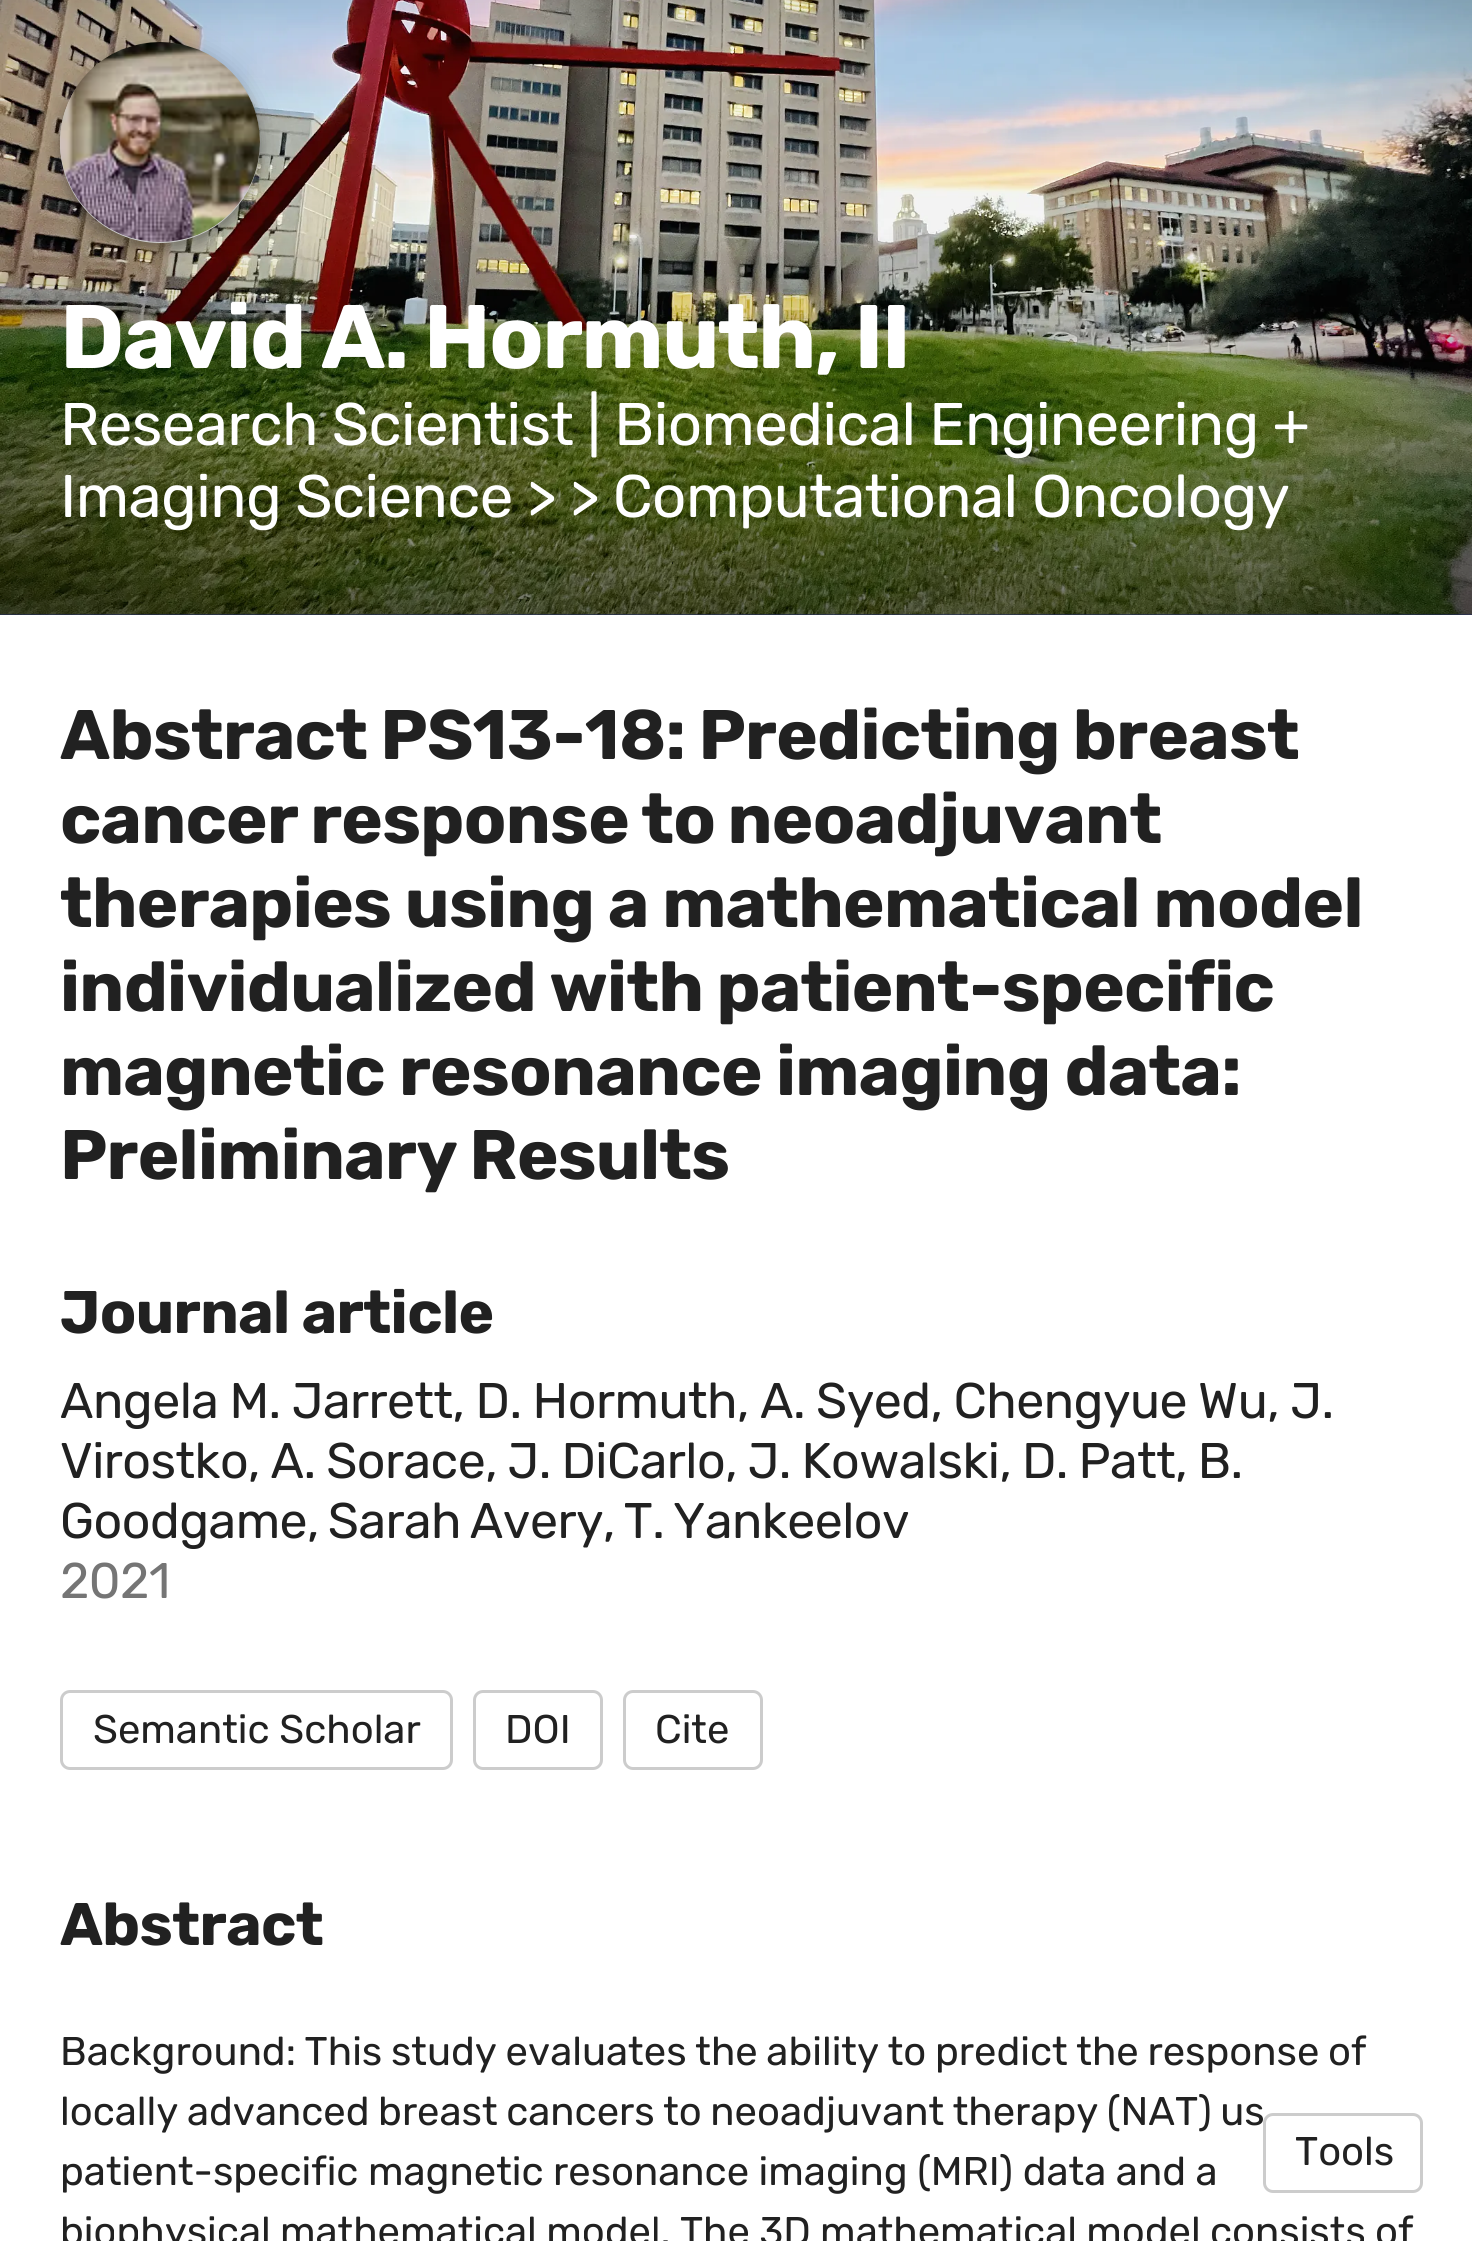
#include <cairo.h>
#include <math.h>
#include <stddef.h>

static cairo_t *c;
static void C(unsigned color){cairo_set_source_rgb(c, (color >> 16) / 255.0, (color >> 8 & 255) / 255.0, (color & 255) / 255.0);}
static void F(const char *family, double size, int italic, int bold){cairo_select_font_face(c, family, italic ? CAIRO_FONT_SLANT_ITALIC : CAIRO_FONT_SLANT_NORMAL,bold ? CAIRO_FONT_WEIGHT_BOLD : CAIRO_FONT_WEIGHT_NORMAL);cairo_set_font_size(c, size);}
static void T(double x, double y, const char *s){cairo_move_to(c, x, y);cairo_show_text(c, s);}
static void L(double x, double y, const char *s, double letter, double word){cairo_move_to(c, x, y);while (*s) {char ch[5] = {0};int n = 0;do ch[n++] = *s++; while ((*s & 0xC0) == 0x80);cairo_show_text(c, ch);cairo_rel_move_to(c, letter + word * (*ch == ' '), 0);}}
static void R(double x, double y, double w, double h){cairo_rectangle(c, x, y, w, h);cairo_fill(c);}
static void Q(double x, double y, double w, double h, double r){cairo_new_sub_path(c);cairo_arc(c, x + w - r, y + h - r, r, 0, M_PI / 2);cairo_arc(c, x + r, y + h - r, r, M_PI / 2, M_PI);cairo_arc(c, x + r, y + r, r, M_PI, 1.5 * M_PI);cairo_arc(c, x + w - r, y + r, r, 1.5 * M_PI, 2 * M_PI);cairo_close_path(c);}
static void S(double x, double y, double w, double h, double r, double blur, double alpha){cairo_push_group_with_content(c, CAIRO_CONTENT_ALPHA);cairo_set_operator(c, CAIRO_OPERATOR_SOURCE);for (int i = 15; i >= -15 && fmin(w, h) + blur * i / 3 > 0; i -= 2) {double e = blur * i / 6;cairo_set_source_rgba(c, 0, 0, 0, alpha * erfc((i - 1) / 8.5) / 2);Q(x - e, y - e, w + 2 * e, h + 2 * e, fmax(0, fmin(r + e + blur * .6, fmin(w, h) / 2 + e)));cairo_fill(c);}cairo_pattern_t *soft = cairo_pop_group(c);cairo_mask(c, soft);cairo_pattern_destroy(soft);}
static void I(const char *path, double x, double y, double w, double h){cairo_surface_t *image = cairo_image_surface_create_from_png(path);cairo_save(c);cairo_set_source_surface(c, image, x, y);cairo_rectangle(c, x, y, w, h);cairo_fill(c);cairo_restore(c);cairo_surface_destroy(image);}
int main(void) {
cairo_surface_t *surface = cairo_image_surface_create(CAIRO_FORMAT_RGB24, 1472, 2241);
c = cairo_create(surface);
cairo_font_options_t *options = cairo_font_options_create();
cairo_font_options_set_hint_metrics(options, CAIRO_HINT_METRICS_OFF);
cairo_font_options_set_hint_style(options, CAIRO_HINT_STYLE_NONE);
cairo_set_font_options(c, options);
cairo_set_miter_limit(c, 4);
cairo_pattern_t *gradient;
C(0xffffff);
cairo_paint(c);
C(0x3f51b5);
R(0,614,1472,1);
I("3.png",0,614,1472,1);
I("1.png",0,0,1472,615);
gradient = cairo_pattern_create_linear(736,-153,736,615);
cairo_pattern_add_color_stop_rgba(gradient,0,0,0,0,.3);
cairo_pattern_add_color_stop_rgba(gradient,.25,0,0,0,0);
cairo_pattern_add_color_stop_rgba(gradient,.5,0,0,0,0);
cairo_pattern_add_color_stop_rgba(gradient,1,0,0,0,.5);
cairo_set_source(c,gradient);
cairo_pattern_destroy(gradient);
R(0,0,1472,615);
C(0x000000);
S(60,45,200,200,100,12.5,.2);
S(60,53,200,200,100,6,.12);
S(60,48,200,200,100,5,.14);
C(0xcccccc);
cairo_arc(c,160,143,100,0,2 * M_PI);
cairo_fill(c);
I("2.png",60,42,200,200);
F("Rubik",90,0,1);
C(0xffffff);
L(60,368,"David A. Hormuth, II",-1.8,-1);
F("Rubik",60,0,0);
L(60,445,"Research Scientist | Biomedical Engineering +",-.6,-.25);
L(60,517,"Imaging Science > > Computational Oncology",-.6,0);
F("Rubik",70,0,1);
C(0x212121);
L(60,759,"Abstract PS13-18: Predicting breast",-.7,-1.1);
L(60,843,"cancer response to neoadjuvant",-.7,-2);
L(60,927,"therapies using a mathematical model",-.7,-.5);
L(60,1011,"individualized with patient-specific",-.7,-1);
L(60,1095,"magnetic resonance imaging data:",-.7,0);
L(60,1179,"Preliminary Results",-.7,-2);
F("Rubik",60,0,1);
L(60,1333,"Journal article",-.6,0);
F("Rubik",50,0,0);
L(60,1418,"Angela M. Jarrett, D. Hormuth, A. Syed, Chengyue Wu, J.",-.5,-.75);
L(60,1478,"Virostko, A. Sorace, J. DiCarlo, J. Kowalski, D. Patt, B.",-.5,-1.25);
L(60,1538,"Goodgame, Sarah Avery, T. Yankeelov",-.5,-3);
C(0x757575);
L(60,1598,"2021",-.5,0);
Q(61.5,1691.5,390,77,8.5);
C(0xcccccc);
cairo_set_line_width(c,3);
cairo_stroke(c);
F("Rubik",40,0,0);
C(0x212121);
T(93,1743,"Semantic Scholar");
Q(474.5,1691.5,127,77,8.5);
C(0xcccccc);
cairo_stroke(c);
C(0x212121);
T(505,1743,"DOI");
Q(624.5,1691.5,137,77,8.5);
C(0xcccccc);
cairo_stroke(c);
C(0x212121);
T(655,1743,"Cite");
F("Rubik",60,0,1);
L(60,1945,"Abstract",-.6,0);
F("Rubik",40,0,0);
L(60,2065,"Background: This study evaluates the ability to predict the response of",0,-1.1);
L(60,2125,"locally advanced breast cancers to neoadjuvant therapy (NAT) us",0,-1.25);
L(60,2185,"patient-specific magnetic resonance imaging (MRI) data and a",0,-.25);
L(60,2245,"biophysical mathematical model. The 3D mathematical model consists of",0,-.5);
Q(1264.5,2114.5,157,77,8.5);
C(0xcccccc);
cairo_stroke(c);
C(0x212121);
T(1295,2165,"Tools");
cairo_surface_write_to_png(surface, "o.png");
cairo_font_options_destroy(options);
cairo_destroy(c);
cairo_surface_destroy(surface);
return 0;
}
